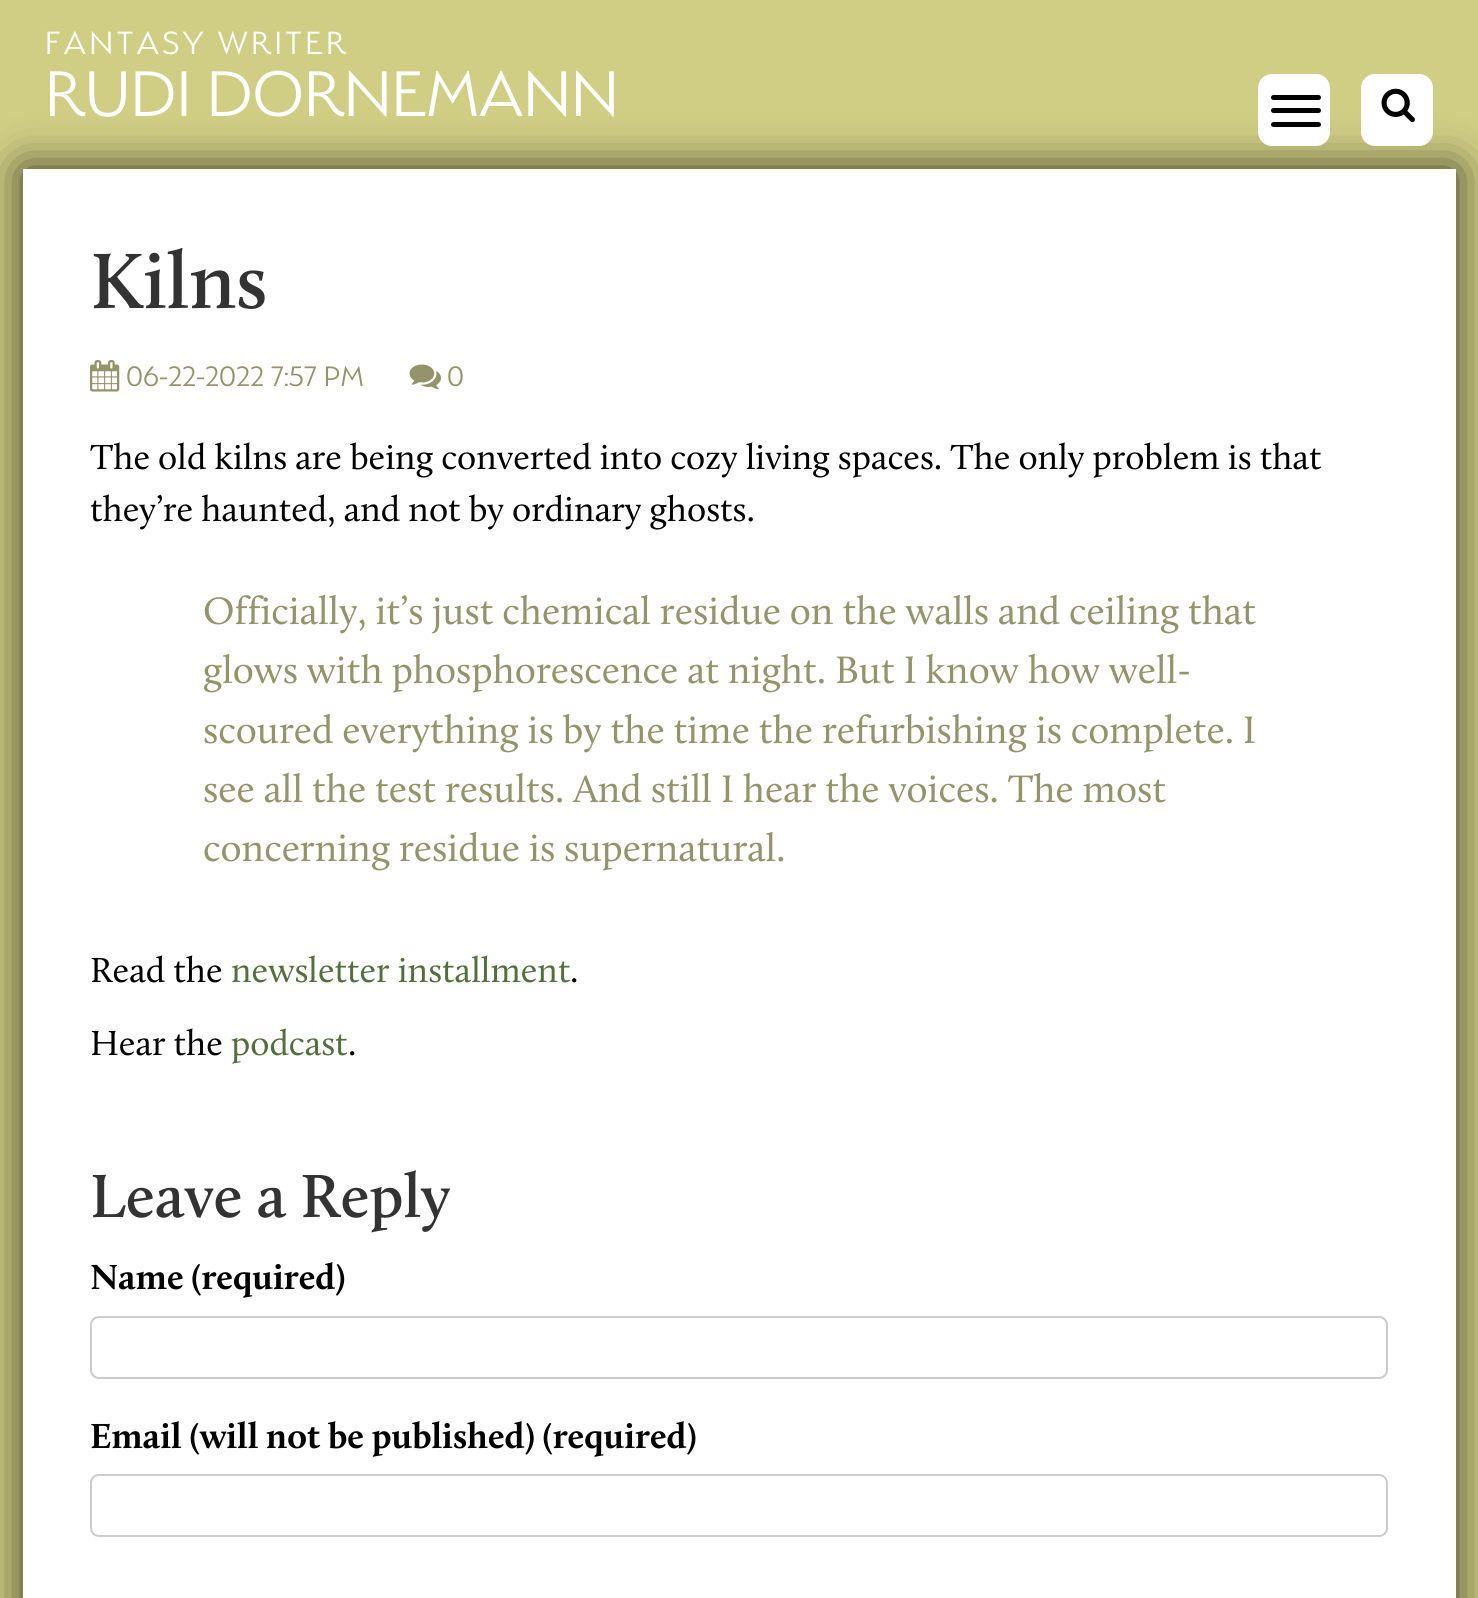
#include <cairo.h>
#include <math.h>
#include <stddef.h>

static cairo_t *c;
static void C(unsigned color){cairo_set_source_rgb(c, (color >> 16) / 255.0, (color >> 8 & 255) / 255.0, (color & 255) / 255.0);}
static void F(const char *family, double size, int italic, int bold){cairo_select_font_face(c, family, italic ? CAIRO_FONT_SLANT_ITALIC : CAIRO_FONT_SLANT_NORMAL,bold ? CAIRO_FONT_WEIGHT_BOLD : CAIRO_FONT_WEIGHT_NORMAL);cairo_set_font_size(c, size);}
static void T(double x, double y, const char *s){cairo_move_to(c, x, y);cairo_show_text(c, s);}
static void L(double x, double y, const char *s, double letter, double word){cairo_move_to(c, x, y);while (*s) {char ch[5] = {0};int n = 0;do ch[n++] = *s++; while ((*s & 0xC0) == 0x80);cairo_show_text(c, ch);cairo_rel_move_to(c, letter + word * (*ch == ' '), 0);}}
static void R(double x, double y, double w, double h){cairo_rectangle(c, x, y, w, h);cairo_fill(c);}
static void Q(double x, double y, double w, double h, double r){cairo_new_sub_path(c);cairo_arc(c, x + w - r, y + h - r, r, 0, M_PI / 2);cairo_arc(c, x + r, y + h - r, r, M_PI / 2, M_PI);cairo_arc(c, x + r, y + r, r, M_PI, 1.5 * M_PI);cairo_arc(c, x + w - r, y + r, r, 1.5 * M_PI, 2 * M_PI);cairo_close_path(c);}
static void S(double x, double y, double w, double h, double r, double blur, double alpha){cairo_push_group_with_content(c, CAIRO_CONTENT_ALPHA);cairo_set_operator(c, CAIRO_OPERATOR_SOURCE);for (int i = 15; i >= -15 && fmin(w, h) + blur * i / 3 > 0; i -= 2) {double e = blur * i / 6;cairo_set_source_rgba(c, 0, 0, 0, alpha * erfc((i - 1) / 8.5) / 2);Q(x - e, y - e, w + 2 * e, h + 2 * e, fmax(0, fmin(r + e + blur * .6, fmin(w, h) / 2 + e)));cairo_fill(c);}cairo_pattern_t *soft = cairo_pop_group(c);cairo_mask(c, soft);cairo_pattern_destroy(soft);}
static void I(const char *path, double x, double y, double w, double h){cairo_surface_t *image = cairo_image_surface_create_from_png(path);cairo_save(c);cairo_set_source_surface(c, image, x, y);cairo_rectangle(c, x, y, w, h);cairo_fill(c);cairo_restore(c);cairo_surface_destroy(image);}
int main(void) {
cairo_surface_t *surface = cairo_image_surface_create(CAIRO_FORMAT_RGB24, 1478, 1598);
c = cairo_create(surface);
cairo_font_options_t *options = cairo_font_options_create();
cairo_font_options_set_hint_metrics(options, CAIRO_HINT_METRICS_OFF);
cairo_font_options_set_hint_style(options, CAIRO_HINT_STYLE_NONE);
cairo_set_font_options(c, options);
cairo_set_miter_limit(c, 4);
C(0xd0ce85);
cairo_paint(c);
F("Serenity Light",36,0,0);
C(0xffffff);
L(45,54,"FANTASY WRITER",3.6,0);
C(0x000000);
S(23,169,1433,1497,0,22.5,.75);
F("Serenity Light",72,0,0);
C(0xffffff);
T(45,116,"RUDI DORNEMANN");
Q(1258,74,72,72,14);
cairo_fill(c);
C(0x000000);
Q(1271,95,50,5,2.5);
cairo_fill(c);
Q(1271,108,50,5,2.5);
cairo_fill(c);
Q(1271,122,50,5,2.5);
cairo_fill(c);
C(0xffffff);
Q(1361,74,72,72,14);
cairo_fill(c);
I("1.png",1381,88,34,35);
R(23,169,1433,1429);
F("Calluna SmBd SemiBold",81,0,0);
C(0x333333);
T(90,308,"Kilns");
I("2.png",90,360,30,32);
F("Serenity Light",31.5,0,0);
C(0x94946b);
T(126,386,"06-22-2022 7:57 PM");
I("3.png",409,364,32,26);
T(447,386,"0");
F("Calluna",36,0,0);
C(0x000000);
T(90,469,"The old kilns are being converted into cozy living spaces. The only problem is that");
T(90,521,"they’re haunted, and not by ordinary ghosts.");
F("Calluna",39.6,0,0);
C(0x94946b);
T(203,624,"Officially, it’s just chemical residue on the walls and ceiling that");
T(203,683,"glows with phosphorescence at night. But I know how well-");
T(203,743,"scoured everything is by the time the refurbishing is complete. I");
T(203,802,"see all the test results. And still I hear the voices. The most");
T(203,861,"concerning residue is supernatural.");
F("Calluna",36,0,0);
C(0x000000);
T(90,982,"Read the");
C(0x536f3c);
T(231,982,"newsletter installment");
C(0x000000);
T(570,982,".");
T(90,1055,"Hear the");
C(0x536f3c);
T(231,1055,"podcast");
C(0x000000);
T(348,1055,".");
F("Calluna SmBd SemiBold",63,0,0);
C(0x333333);
T(90,1217,"Leave a Reply");
F("Calluna",36,0,1);
C(0x000000);
T(90,1289,"Name (required)");
Q(91,1317,1296,61,8);
C(0xcccccc);
cairo_stroke(c);
C(0x000000);
T(90,1448,"Email (will not be published) (required)");
Q(91,1475,1296,61,8);
C(0xcccccc);
cairo_stroke(c);
cairo_surface_write_to_png(surface, "o.png");
cairo_font_options_destroy(options);
cairo_destroy(c);
cairo_surface_destroy(surface);
return 0;
}
